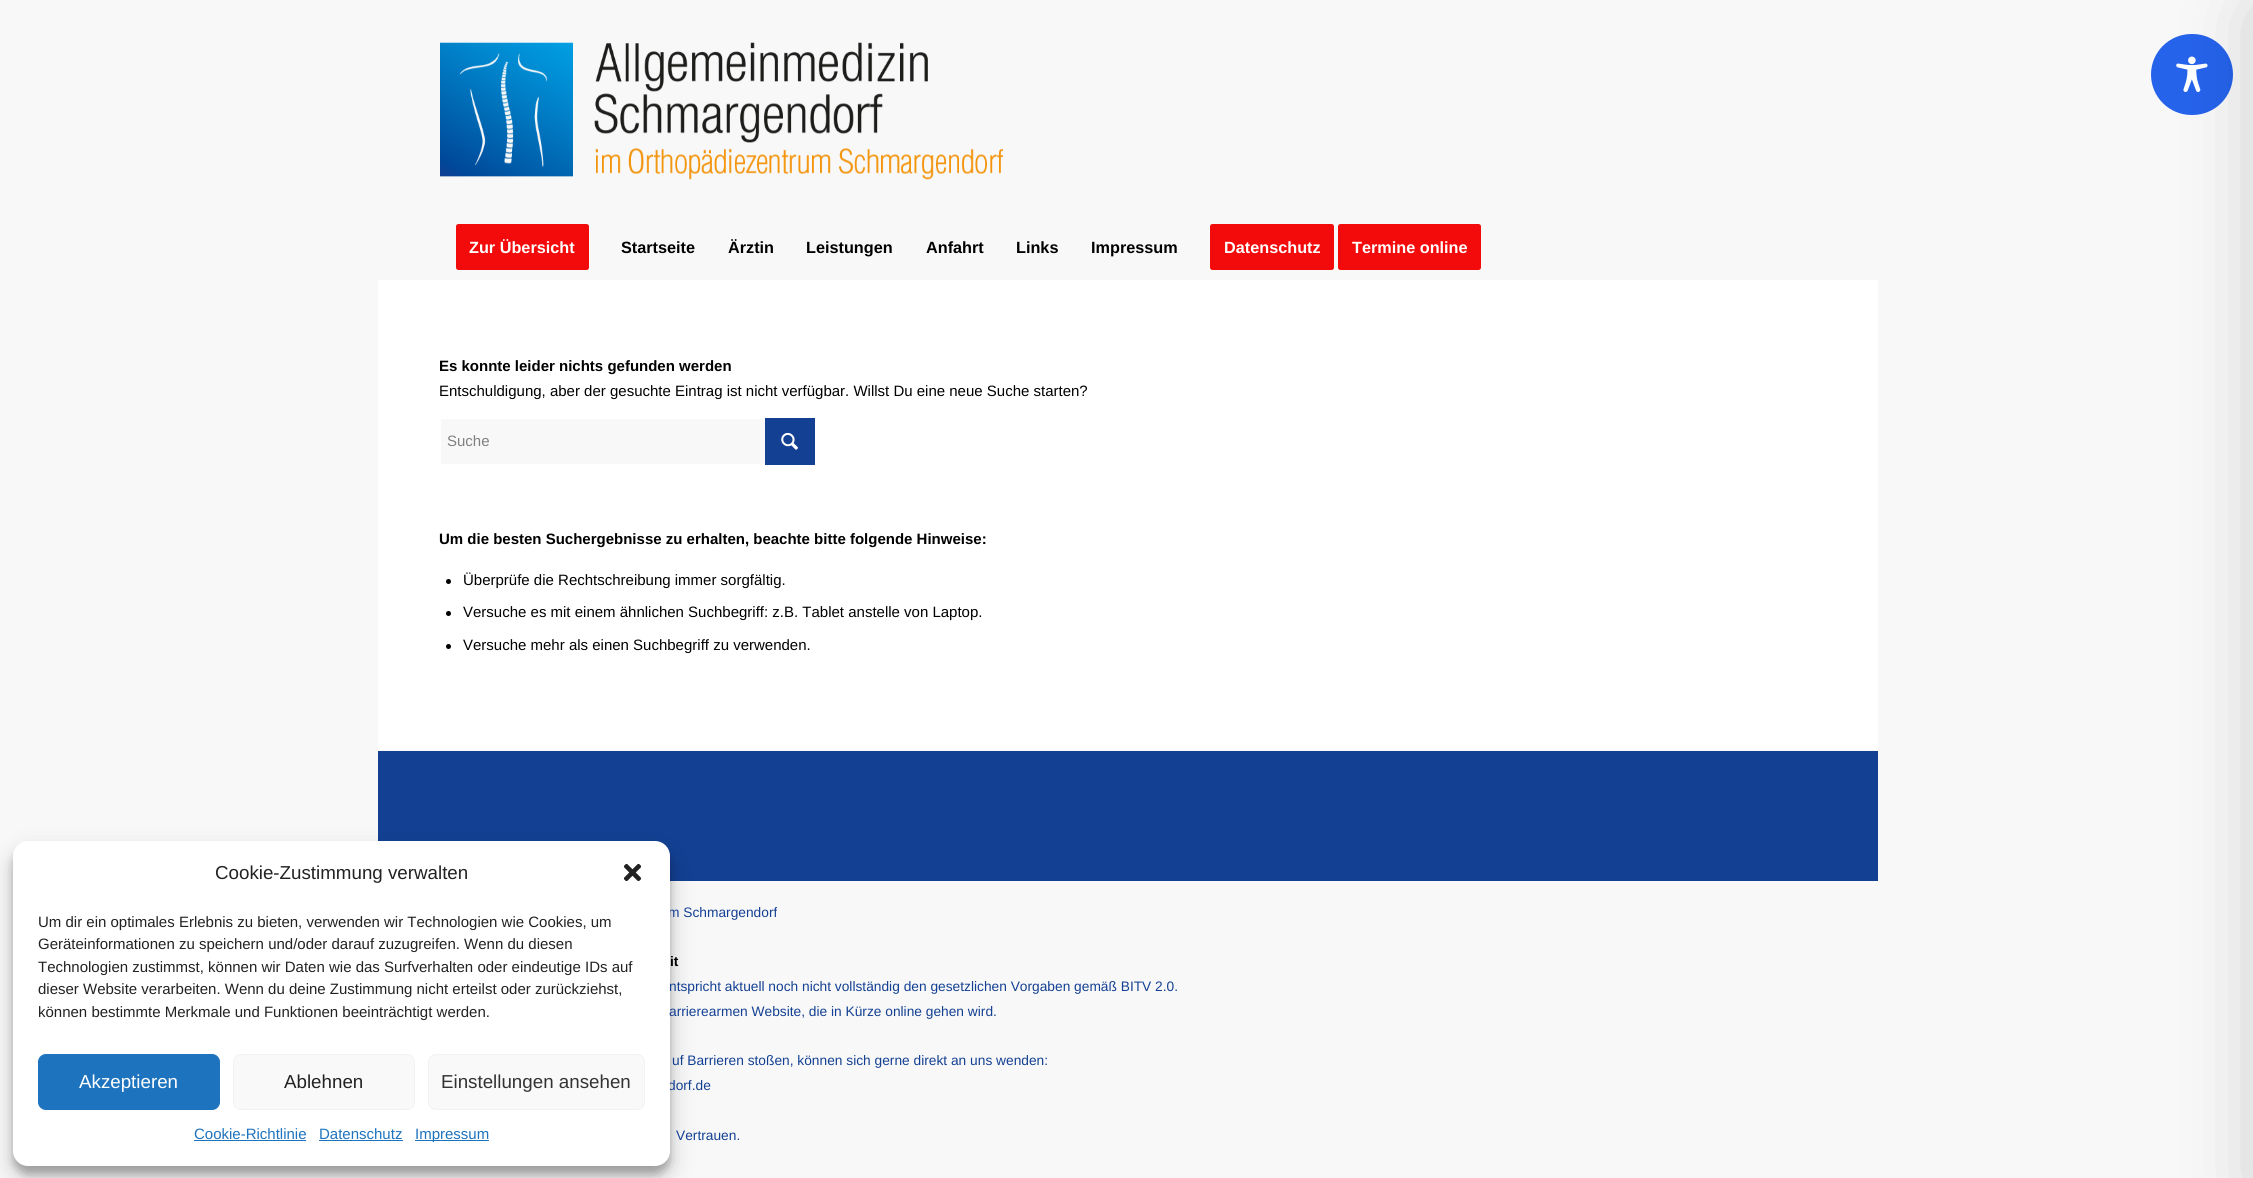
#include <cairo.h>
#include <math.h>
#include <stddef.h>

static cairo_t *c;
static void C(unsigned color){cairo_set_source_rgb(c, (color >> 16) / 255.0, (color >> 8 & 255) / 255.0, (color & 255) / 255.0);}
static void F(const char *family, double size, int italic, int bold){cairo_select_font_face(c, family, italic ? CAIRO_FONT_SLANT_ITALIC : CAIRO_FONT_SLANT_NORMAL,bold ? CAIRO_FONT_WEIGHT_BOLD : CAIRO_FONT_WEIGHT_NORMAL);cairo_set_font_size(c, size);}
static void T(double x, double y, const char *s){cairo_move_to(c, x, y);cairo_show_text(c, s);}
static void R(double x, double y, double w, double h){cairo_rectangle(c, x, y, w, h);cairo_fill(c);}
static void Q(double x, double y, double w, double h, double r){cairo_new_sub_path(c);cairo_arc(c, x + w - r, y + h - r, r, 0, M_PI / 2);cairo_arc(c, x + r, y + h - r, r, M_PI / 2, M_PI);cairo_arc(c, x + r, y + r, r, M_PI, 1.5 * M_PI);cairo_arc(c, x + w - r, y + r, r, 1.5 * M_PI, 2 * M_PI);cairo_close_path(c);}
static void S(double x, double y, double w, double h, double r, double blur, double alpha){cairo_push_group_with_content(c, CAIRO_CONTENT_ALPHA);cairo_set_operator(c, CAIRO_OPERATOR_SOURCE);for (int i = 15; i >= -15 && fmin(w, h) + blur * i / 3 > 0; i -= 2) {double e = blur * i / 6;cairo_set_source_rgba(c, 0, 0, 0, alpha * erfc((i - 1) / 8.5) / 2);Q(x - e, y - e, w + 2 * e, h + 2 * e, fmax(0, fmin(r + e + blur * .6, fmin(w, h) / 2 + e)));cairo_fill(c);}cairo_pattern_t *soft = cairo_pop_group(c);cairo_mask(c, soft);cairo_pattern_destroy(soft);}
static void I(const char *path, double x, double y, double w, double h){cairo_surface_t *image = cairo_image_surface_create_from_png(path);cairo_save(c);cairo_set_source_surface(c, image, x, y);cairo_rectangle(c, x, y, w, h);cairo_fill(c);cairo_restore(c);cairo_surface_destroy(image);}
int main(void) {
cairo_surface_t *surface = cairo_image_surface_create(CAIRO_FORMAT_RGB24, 2253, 1178);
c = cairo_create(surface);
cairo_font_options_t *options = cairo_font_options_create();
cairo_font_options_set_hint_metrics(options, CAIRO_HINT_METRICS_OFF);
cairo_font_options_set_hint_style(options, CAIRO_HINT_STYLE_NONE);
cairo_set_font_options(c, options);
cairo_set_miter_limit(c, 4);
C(0xf8f8f8);
cairo_paint(c);
C(0x2563eb);
Q(2151,34,82,81,40.5);
cairo_fill(c);
I("1.png",2176,56,32,37);
C(0x000000);
S(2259,13,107,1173,0,37.5,.2);
C(0x134093);
R(378,751,1500,130);
C(0x000000);
S(13,849,657,325,15,4,.23);
S(13,854,657,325,15,12.5,.19);
F("Liberation Sans",13.75,0,0);
C(0x134093);
T(668,917,"m Schmargendorf");
T(668,1090,"dorf.de");
C(0xffffff);
Q(13,841,657,325,15);
cairo_fill(c);
F("Liberation Sans",18.75,0,0);
C(0x222222);
T(215,879,"Cookie-Zustimmung verwalten");
I("2.png",623,863,19,19);
F("Liberation Sans",15,0,0);
T(38,927,"Um dir ein optimales Erlebnis zu bieten, verwenden wir Technologien wie Cookies, um");
T(38,949,"Geräteinformationen zu speichern und/oder darauf zuzugreifen. Wenn du diesen");
T(38,972,"Technologien zustimmst, können wir Daten wie das Surfverhalten oder eindeutige IDs auf");
T(38,994,"dieser Website verarbeiten. Wenn du deine Zustimmung nicht erteilst oder zurückziehst,");
T(38,1017,"können bestimmte Merkmale und Funktionen beeinträchtigt werden.");
C(0x1e73be);
Q(38.5,1054.5,181,55,7.5);
cairo_fill_preserve(c);
cairo_set_line_width(c,1);
cairo_stroke(c);
F("Liberation Sans",18.75,0,0);
C(0xffffff);
T(79,1088,"Akzeptieren");
C(0xf9f9f9);
Q(233.5,1054.5,181,55,7.5);
cairo_fill_preserve(c);
C(0xf2f2f2);
cairo_stroke(c);
C(0x222222);
T(284,1088,"Ablehnen");
C(0xf9f9f9);
Q(428.5,1054.5,216,55,7.5);
cairo_fill_preserve(c);
C(0xf2f2f2);
cairo_stroke(c);
C(0x333333);
T(441,1088,"Einstellungen ansehen");
F("Liberation Sans",15,0,0);
C(0x1e73be);
T(194,1139,"Cookie-Richtlinie");
R(194,1140,112,1);
T(319,1139,"Datenschutz");
R(319,1140,84,1);
R(415,1140,74,1);
T(415,1139,"Impressum");
I("3.png",440,42,563,138);
C(0xf30a0a);
Q(457.5,225.5,130,43,1);
cairo_fill_preserve(c);
cairo_set_line_width(c,3);
cairo_stroke(c);
F("Liberation Sans",16.25,0,1);
C(0xffffff);
T(469,253,"Zur Übersicht");
C(0x000000);
T(621,253,"Startseite");
T(728,253,"Ärztin");
T(806,253,"Leistungen");
T(926,253,"Anfahrt");
T(1016,253,"Links");
T(1091,253,"Impressum");
C(0xf30a0a);
Q(1211.5,225.5,121,43,1);
cairo_fill_preserve(c);
cairo_stroke(c);
C(0xffffff);
T(1224,253,"Datenschutz");
C(0xf30a0a);
Q(1339.5,225.5,140,43,1);
cairo_fill_preserve(c);
cairo_stroke(c);
C(0xffffff);
T(1352,253,"Termine online");
R(378,280,1500,470);
F("Liberation Sans",15,0,1);
C(0x000000);
T(439,371,"Es konnte leider nichts gefunden werden");
F("Liberation Sans",15,0,0);
T(439,396,"Entschuldigung, aber der gesuchte Eintrag ist nicht verfügbar. Willst Du eine neue Suche starten?");
C(0xf8f8f8);
R(441,419,324,45);
C(0x808080);
T(447,446,"Suche");
C(0x134093);
R(765,418,50,47);
I("4.png",781,432,17,18);
F("Liberation Sans",15,0,1);
C(0x000000);
T(439,544,"Um die besten Suchergebnisse zu erhalten, beachte bitte folgende Hinweise:");
cairo_new_path(c);
cairo_arc(c,448.5,581.5,2.5,0,2 * M_PI);
cairo_fill(c);
F("Liberation Sans",15,0,0);
T(463,585,"Überprüfe die Rechtschreibung immer sorgfältig.");
cairo_new_path(c);
cairo_arc(c,448.5,613.5,2.5,0,2 * M_PI);
cairo_fill(c);
T(463,617,"Versuche es mit einem ähnlichen Suchbegriff: z.B. Tablet anstelle von Laptop.");
cairo_new_path(c);
cairo_arc(c,448.5,646.5,2.5,0,2 * M_PI);
cairo_fill(c);
T(463,650,"Versuche mehr als einen Suchbegriff zu verwenden.");
F("Liberation Sans",13.75,0,1);
T(670,966,"it");
F("Liberation Sans",13.75,0,0);
C(0x134093);
T(669,991,"ntspricht aktuell noch nicht vollständig den gesetzlichen Vorgaben gemäß BITV 2.0.");
T(669,1016,"arrierearmen Website, die in Kürze online gehen wird.");
T(672,1065,"uf Barrieren stoßen, können sich gerne direkt an uns wenden:");
T(676,1140,"Vertrauen.");
cairo_surface_write_to_png(surface, "o.png");
cairo_font_options_destroy(options);
cairo_destroy(c);
cairo_surface_destroy(surface);
return 0;
}
